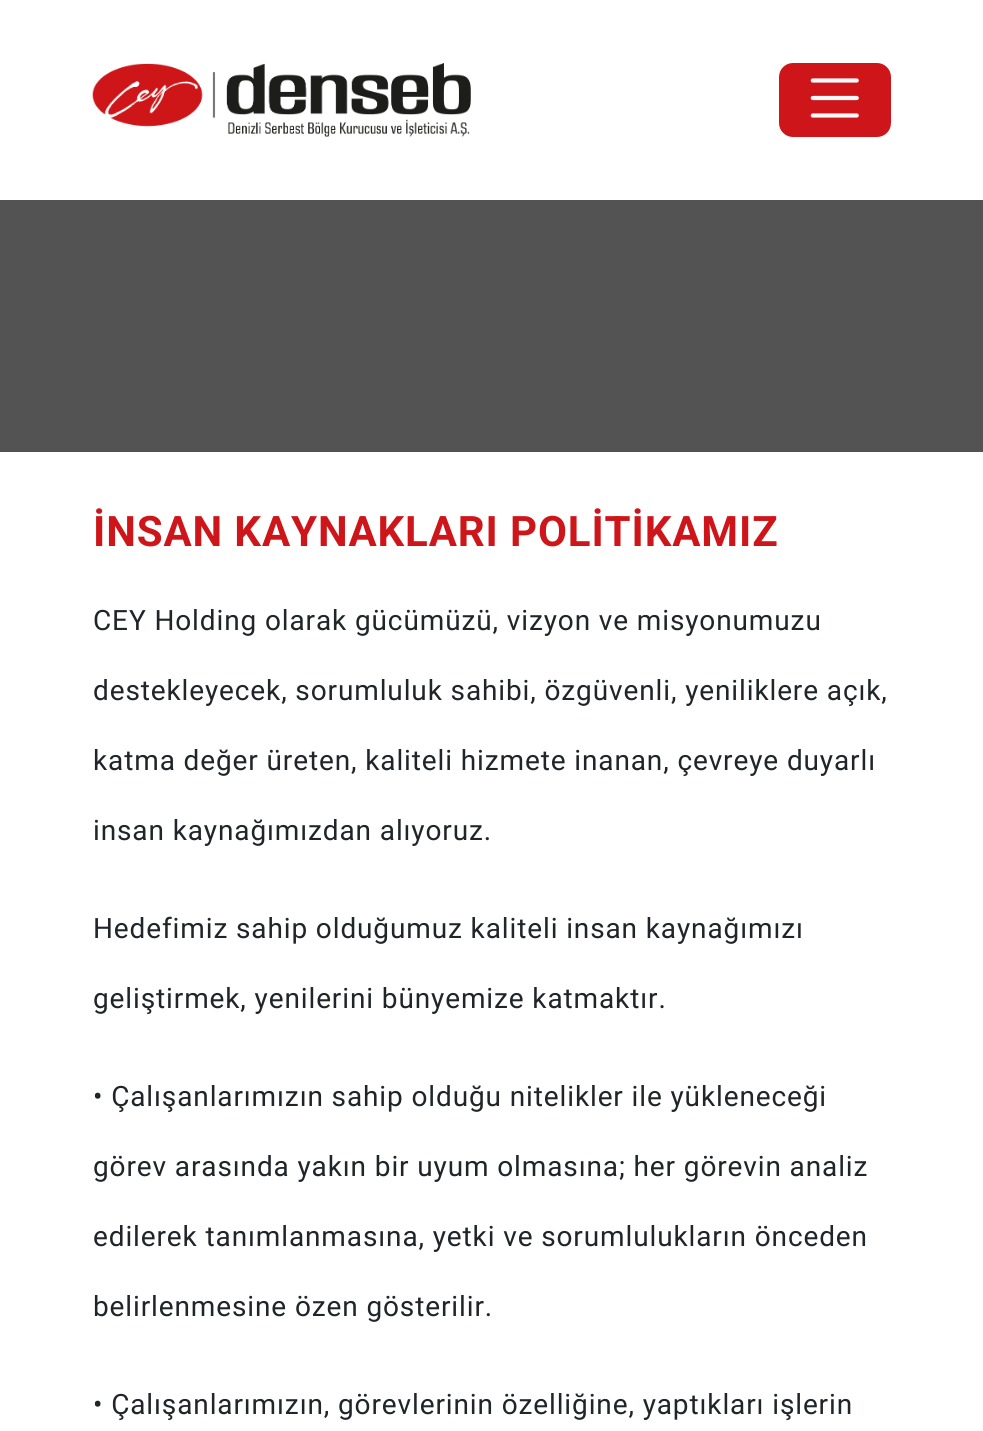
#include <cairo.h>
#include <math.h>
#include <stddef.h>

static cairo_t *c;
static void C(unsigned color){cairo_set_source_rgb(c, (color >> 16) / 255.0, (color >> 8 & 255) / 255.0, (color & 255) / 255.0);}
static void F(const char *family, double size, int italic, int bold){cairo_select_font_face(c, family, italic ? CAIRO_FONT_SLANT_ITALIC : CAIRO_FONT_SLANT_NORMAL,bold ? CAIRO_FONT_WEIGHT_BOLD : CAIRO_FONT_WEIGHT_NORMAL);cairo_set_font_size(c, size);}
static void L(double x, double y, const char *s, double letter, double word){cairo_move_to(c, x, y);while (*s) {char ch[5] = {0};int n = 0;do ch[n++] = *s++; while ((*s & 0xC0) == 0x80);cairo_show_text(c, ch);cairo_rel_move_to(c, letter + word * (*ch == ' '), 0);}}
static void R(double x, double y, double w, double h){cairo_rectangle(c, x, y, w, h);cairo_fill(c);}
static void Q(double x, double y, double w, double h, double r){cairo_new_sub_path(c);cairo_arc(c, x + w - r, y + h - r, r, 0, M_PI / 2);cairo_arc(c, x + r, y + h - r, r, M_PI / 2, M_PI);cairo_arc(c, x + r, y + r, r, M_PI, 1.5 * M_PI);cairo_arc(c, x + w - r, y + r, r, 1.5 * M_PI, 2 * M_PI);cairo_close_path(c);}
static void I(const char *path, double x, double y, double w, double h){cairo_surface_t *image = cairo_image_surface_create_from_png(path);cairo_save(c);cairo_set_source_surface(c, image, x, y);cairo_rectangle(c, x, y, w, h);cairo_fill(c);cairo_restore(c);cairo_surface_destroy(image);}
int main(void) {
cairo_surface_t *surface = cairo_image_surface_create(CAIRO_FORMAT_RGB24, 983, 1431);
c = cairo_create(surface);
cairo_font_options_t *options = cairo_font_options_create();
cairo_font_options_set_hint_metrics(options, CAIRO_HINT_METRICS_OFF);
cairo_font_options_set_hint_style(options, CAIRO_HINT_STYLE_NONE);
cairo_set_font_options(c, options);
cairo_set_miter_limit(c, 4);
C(0xffffff);
cairo_paint(c);
I("1.png",92,63,379,74);
C(0xce161a);
Q(779,63,112,74,14);
cairo_fill(c);
I("2.png",810,78,49,40);
C(0x535353);
R(0,200,983,252);
F("Roboto",42,0,1);
C(0xce161a);
L(93,546,"İNSAN KAYNAKLARI POLİTİKAMIZ",.88,0);
F("Roboto",28,0,0);
C(0x212529);
L(93,630,"CEY Holding olarak gücümüzü, vizyon ve misyonumuzu",.88,0);
L(93,700,"destekleyecek, sorumluluk sahibi, özgüvenli, yeniliklere açık,",.88,0);
L(93,770,"katma değer üreten, kaliteli hizmete inanan, çevreye duyarlı",.88,0);
L(93,840,"insan kaynağımızdan alıyoruz.",.88,0);
L(93,938,"Hedefimiz sahip olduğumuz kaliteli insan kaynağımızı",.88,0);
L(93,1008,"geliştirmek, yenilerini bünyemize katmaktır.",.88,0);
L(93,1106,"• Çalışanlarımızın sahip olduğu nitelikler ile yükleneceği",.88,0);
L(93,1176,"görev arasında yakın bir uyum olmasına; her görevin analiz",.88,0);
L(93,1246,"edilerek tanımlanmasına, yetki ve sorumlulukların önceden",.88,0);
L(93,1316,"belirlenmesine özen gösterilir.",.88,0);
L(93,1414,"• Çalışanlarımızın, görevlerinin özelliğine, yaptıkları işlerin",.88,0);
cairo_surface_write_to_png(surface, "o.png");
cairo_font_options_destroy(options);
cairo_destroy(c);
cairo_surface_destroy(surface);
return 0;
}
